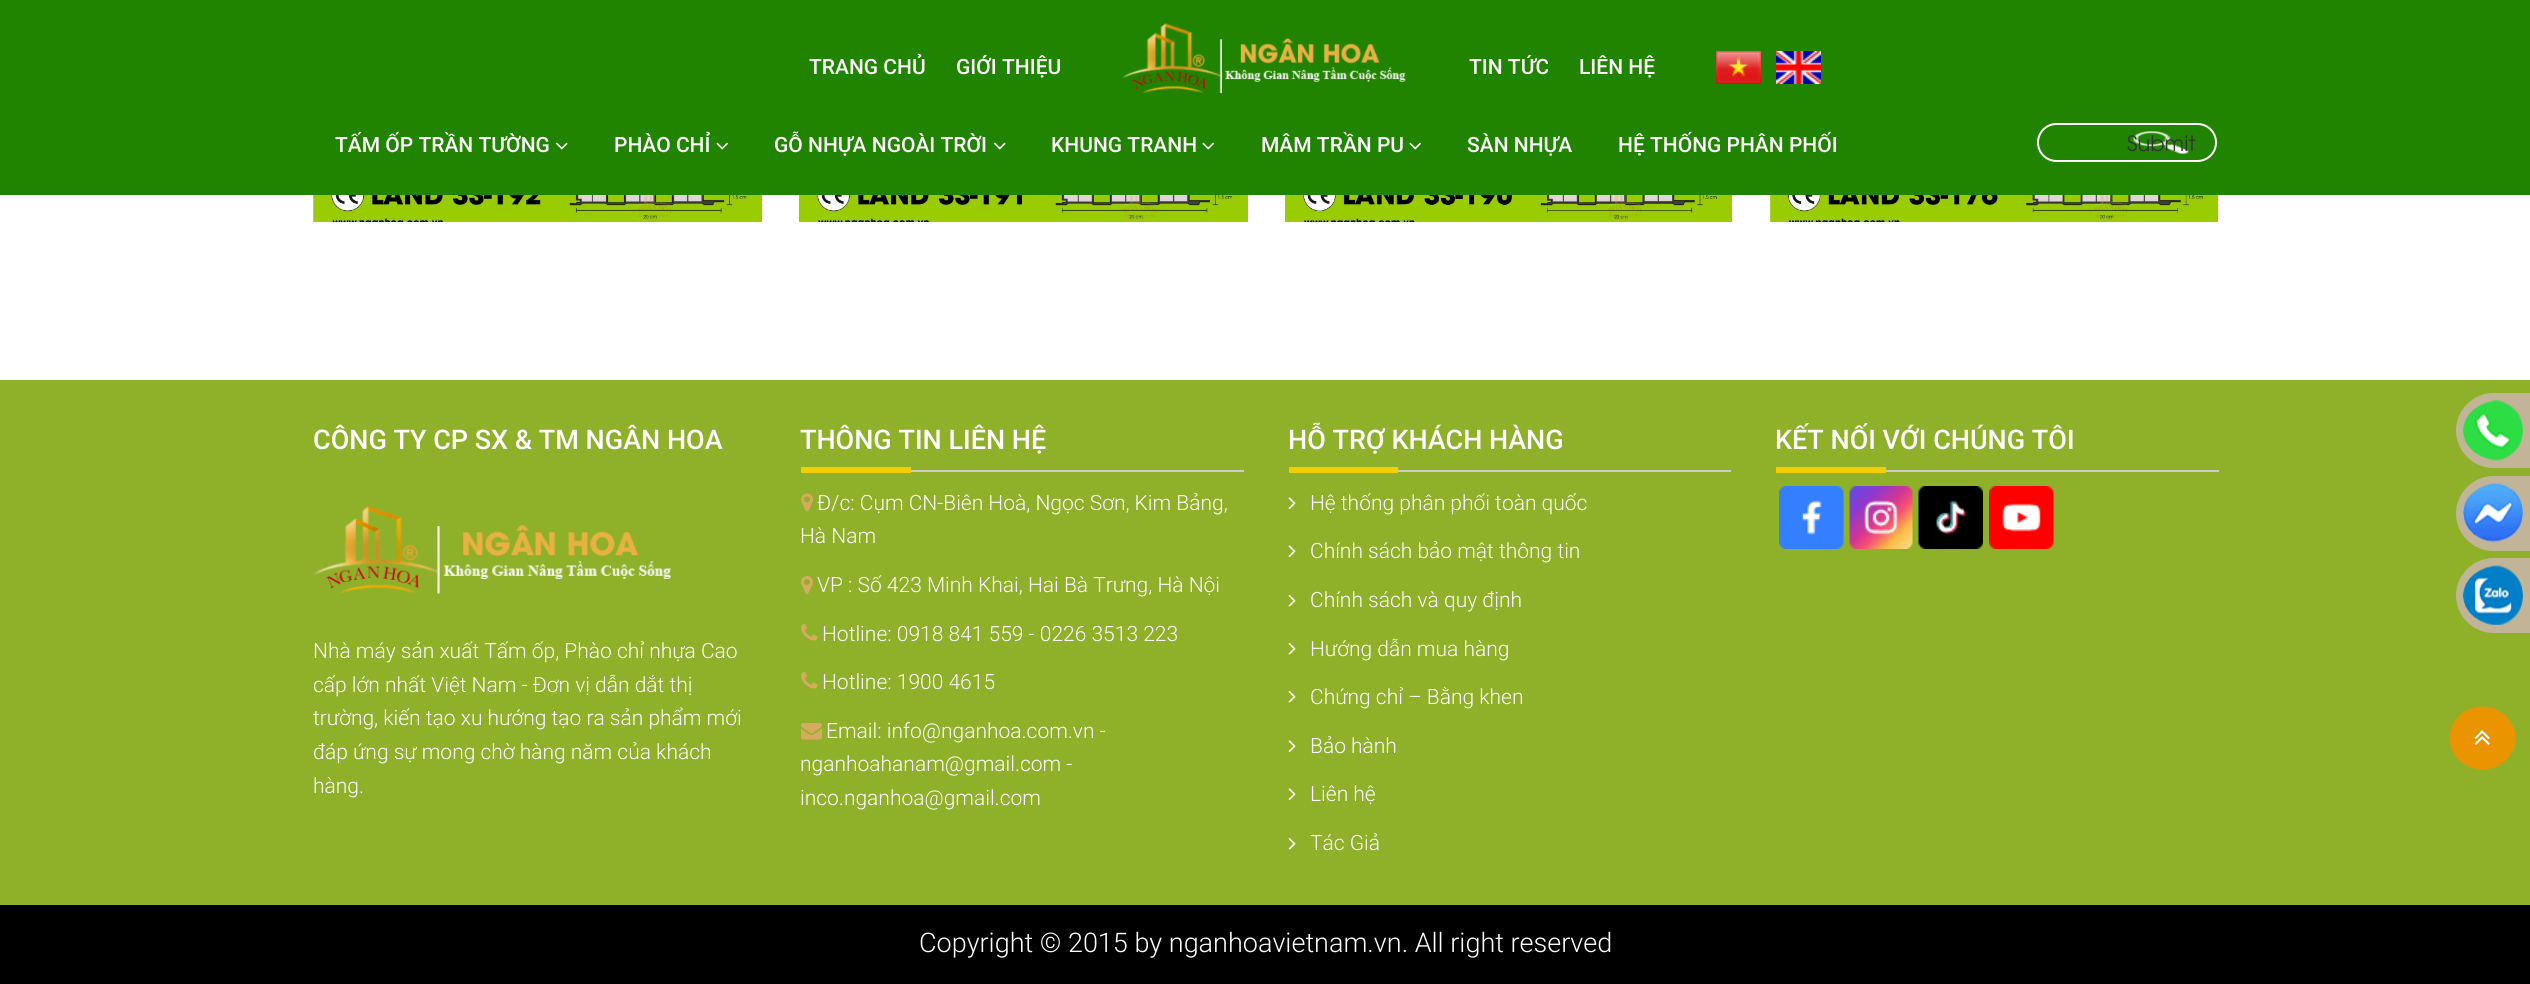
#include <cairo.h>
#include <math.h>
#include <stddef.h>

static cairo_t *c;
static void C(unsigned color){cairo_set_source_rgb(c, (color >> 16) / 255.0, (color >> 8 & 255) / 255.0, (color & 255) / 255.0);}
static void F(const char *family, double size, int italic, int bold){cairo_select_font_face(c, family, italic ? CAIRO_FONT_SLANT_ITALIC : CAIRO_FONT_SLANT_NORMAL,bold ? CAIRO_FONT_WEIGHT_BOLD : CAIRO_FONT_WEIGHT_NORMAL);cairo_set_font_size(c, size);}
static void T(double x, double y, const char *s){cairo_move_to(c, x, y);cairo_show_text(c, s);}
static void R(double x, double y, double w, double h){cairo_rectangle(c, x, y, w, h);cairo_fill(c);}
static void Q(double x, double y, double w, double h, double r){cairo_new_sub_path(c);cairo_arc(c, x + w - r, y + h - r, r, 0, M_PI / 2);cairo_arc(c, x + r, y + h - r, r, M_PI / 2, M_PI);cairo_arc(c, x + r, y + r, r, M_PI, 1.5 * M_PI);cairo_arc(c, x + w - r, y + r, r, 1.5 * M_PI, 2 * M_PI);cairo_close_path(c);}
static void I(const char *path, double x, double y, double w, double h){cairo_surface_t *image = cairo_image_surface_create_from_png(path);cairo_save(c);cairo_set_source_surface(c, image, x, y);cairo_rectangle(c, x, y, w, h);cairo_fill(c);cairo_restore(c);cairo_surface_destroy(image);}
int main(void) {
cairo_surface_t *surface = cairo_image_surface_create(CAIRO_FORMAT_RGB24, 2530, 984);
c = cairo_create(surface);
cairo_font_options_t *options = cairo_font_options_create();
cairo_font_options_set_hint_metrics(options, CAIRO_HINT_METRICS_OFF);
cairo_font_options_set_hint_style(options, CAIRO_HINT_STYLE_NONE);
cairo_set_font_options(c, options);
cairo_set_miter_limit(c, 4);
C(0xffffff);
cairo_paint(c);
C(0x218400);
R(0,0,2530,195);
F("Roboto Medium",21,0,0);
C(0xffffff);
T(809,74,"TRANG CHỦ");
T(956,74,"GIỚI THIỆU");
I("1.png",1122,23,284,71);
T(1469,74,"TIN TỨC");
T(1579,74,"LIÊN HỆ");
I("2.png",1716,51,45,33);
I("3.png",1776,51,45,33);
T(335,152,"TẤM ỐP TRẦN TƯỜNG");
I("4.png",555,142,13,8);
T(614,152,"PHÀO CHỈ");
I("5.png",716,142,13,8);
T(774,152,"GỖ NHỰA NGOÀI TRỜI");
I("4.png",993,142,13,8);
T(1051,152,"KHUNG TRANH");
I("5.png",1202,142,13,8);
T(1261,152,"MÂM TRẦN PU");
I("5.png",1409,142,13,8);
T(1467,152,"SÀN NHỰA");
T(1618,152,"HỆ THỐNG PHÂN PHỐI");
Q(2038,124,178,37,18.5);
cairo_stroke(c);
I("6.png",2133,131,56,23);
F("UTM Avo",21,0,0);
C(0x333333);
T(2127,151,"Submit");
I("7.png",313,195,449,27);
I("8.png",799,195,449,27);
I("9.png",1285,195,447,27);
I("10.png",1770,195,448,27);
C(0x8fb12a);
R(0,380,2530,525);
F("Roboto Medium",27,0,0);
C(0xffffff);
T(313,449,"CÔNG TY CP SX & TM NGÂN HOA");
I("11.png",313,506,358,88);
F("Roboto Light",21,0,0);
T(313,658,"Nhà máy sản xuất Tấm ốp, Phào chỉ nhựa Cao");
T(313,692,"cấp lớn nhất Việt Nam - Đơn vị dẫn dắt thị");
T(313,725,"trường, kiến tạo xu hướng tạo ra sản phẩm mới");
T(313,759,"đáp ứng sự mong chờ hàng năm của khách");
T(313,793,"hàng.");
C(0xcccccc);
R(911,470,333,2);
F("Roboto Medium",27,0,0);
C(0xffffff);
T(800,449,"THÔNG TIN LIÊN HỆ");
C(0xf4cf00);
R(801,467,110,6);
I("12.png",801,493,12,19);
F("Roboto Light",21,0,0);
C(0xffffff);
T(817,510,"Đ/c: Cụm CN-Biên Hoà, Ngọc Sơn, Kim Bảng,");
T(800,543,"Hà Nam");
I("13.png",801,576,12,18);
T(817,592,"VP : Số 423 Minh Khai, Hai Bà Trưng, Hà Nội");
I("14.png",801,624,17,17);
T(822,641,"Hotline: 0918 841 559 - 0226 3513 223");
I("14.png",801,672,17,17);
T(822,689,"Hotline: 1900 4615");
I("15.png",801,723,21,17);
T(826,738,"Email: info@nganhoa.com.vn -");
T(800,771,"nganhoahanam@gmail.com -");
T(800,805,"inco.nganhoa@gmail.com");
C(0xcccccc);
R(1398,470,333,2);
F("Roboto Medium",27,0,0);
C(0xffffff);
T(1288,449,"HỖ TRỢ KHÁCH HÀNG");
C(0xf4cf00);
R(1289,467,109,6);
I("16.png",1288,497,8,12);
F("Roboto Light",21,0,0);
C(0xffffff);
T(1310,510,"Hệ thống phân phối toàn quốc");
I("16.png",1288,545,8,12);
T(1310,558,"Chính sách bảo mật thông tin");
I("17.png",1288,595,8,12);
T(1310,607,"Chính sách và quy định");
I("17.png",1288,643,8,12);
T(1310,656,"Hướng dẫn mua hàng");
I("17.png",1288,691,8,12);
T(1310,704,"Chứng chỉ – Bằng khen");
I("16.png",1288,740,8,12);
T(1310,753,"Bảo hành");
I("16.png",1288,788,8,12);
T(1310,801,"Liên hệ");
I("17.png",1288,838,8,12);
T(1310,850,"Tác Giả");
C(0xcccccc);
R(1886,470,333,2);
F("Roboto Medium",27,0,0);
C(0xffffff);
T(1775,449,"KẾT NỐI VỚI CHÚNG TÔI");
C(0xf4cf00);
R(1776,467,110,6);
I("18.png",1779,486,65,63);
I("19.png",1849,486,64,63);
I("20.png",1918,486,65,63);
I("21.png",1989,486,65,63);
C(0xc2b597);
cairo_new_path(c);
cairo_move_to(c,2493.5,393);
cairo_line_to(c,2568,393);
cairo_line_to(c,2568,468);
cairo_line_to(c,2493.5,468);
cairo_curve_to(c,2473,468,2456,451,2456,430.5);
cairo_curve_to(c,2456,410,2473,393,2493.5,393);
cairo_close_path(c);
cairo_fill(c);
I("22.png",2463,400,60,61);
cairo_new_path(c);
cairo_move_to(c,2493.5,476);
cairo_line_to(c,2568,476);
cairo_line_to(c,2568,551);
cairo_line_to(c,2493.5,551);
cairo_curve_to(c,2473,551,2456,534,2456,513.5);
cairo_curve_to(c,2456,493,2473,476,2493.5,476);
cairo_close_path(c);
cairo_fill(c);
I("23.png",2463,482,60,61);
cairo_new_path(c);
cairo_move_to(c,2493.5,558);
cairo_line_to(c,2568,558);
cairo_line_to(c,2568,633);
cairo_line_to(c,2493.5,633);
cairo_curve_to(c,2473,633,2456,616,2456,595.5);
cairo_curve_to(c,2456,575,2473,558,2493.5,558);
cairo_close_path(c);
cairo_fill(c);
I("24.png",2463,565,60,60);
C(0xea9400);
cairo_new_path(c);
cairo_move_to(c,2482.5,706.5);
cairo_curve_to(c,2500.5,706.5,2515.5,720.5,2515.5,738);
cairo_curve_to(c,2515.5,755.5,2500.5,769.5,2482.5,769.5);
cairo_curve_to(c,2464.5,769.5,2449.5,755.5,2449.5,738);
cairo_curve_to(c,2449.5,720.5,2464.5,706.5,2482.5,706.5);
cairo_close_path(c);
cairo_fill(c);
I("25.png",2474,730,16,15);
C(0x000000);
R(0,905,2530,79);
F("Roboto Light",27,0,0);
C(0xffffff);
T(919,952,"Copyright © 2015 by nganhoavietnam.vn. All right reserved");
cairo_surface_write_to_png(surface, "o.png");
cairo_font_options_destroy(options);
cairo_destroy(c);
cairo_surface_destroy(surface);
return 0;
}
